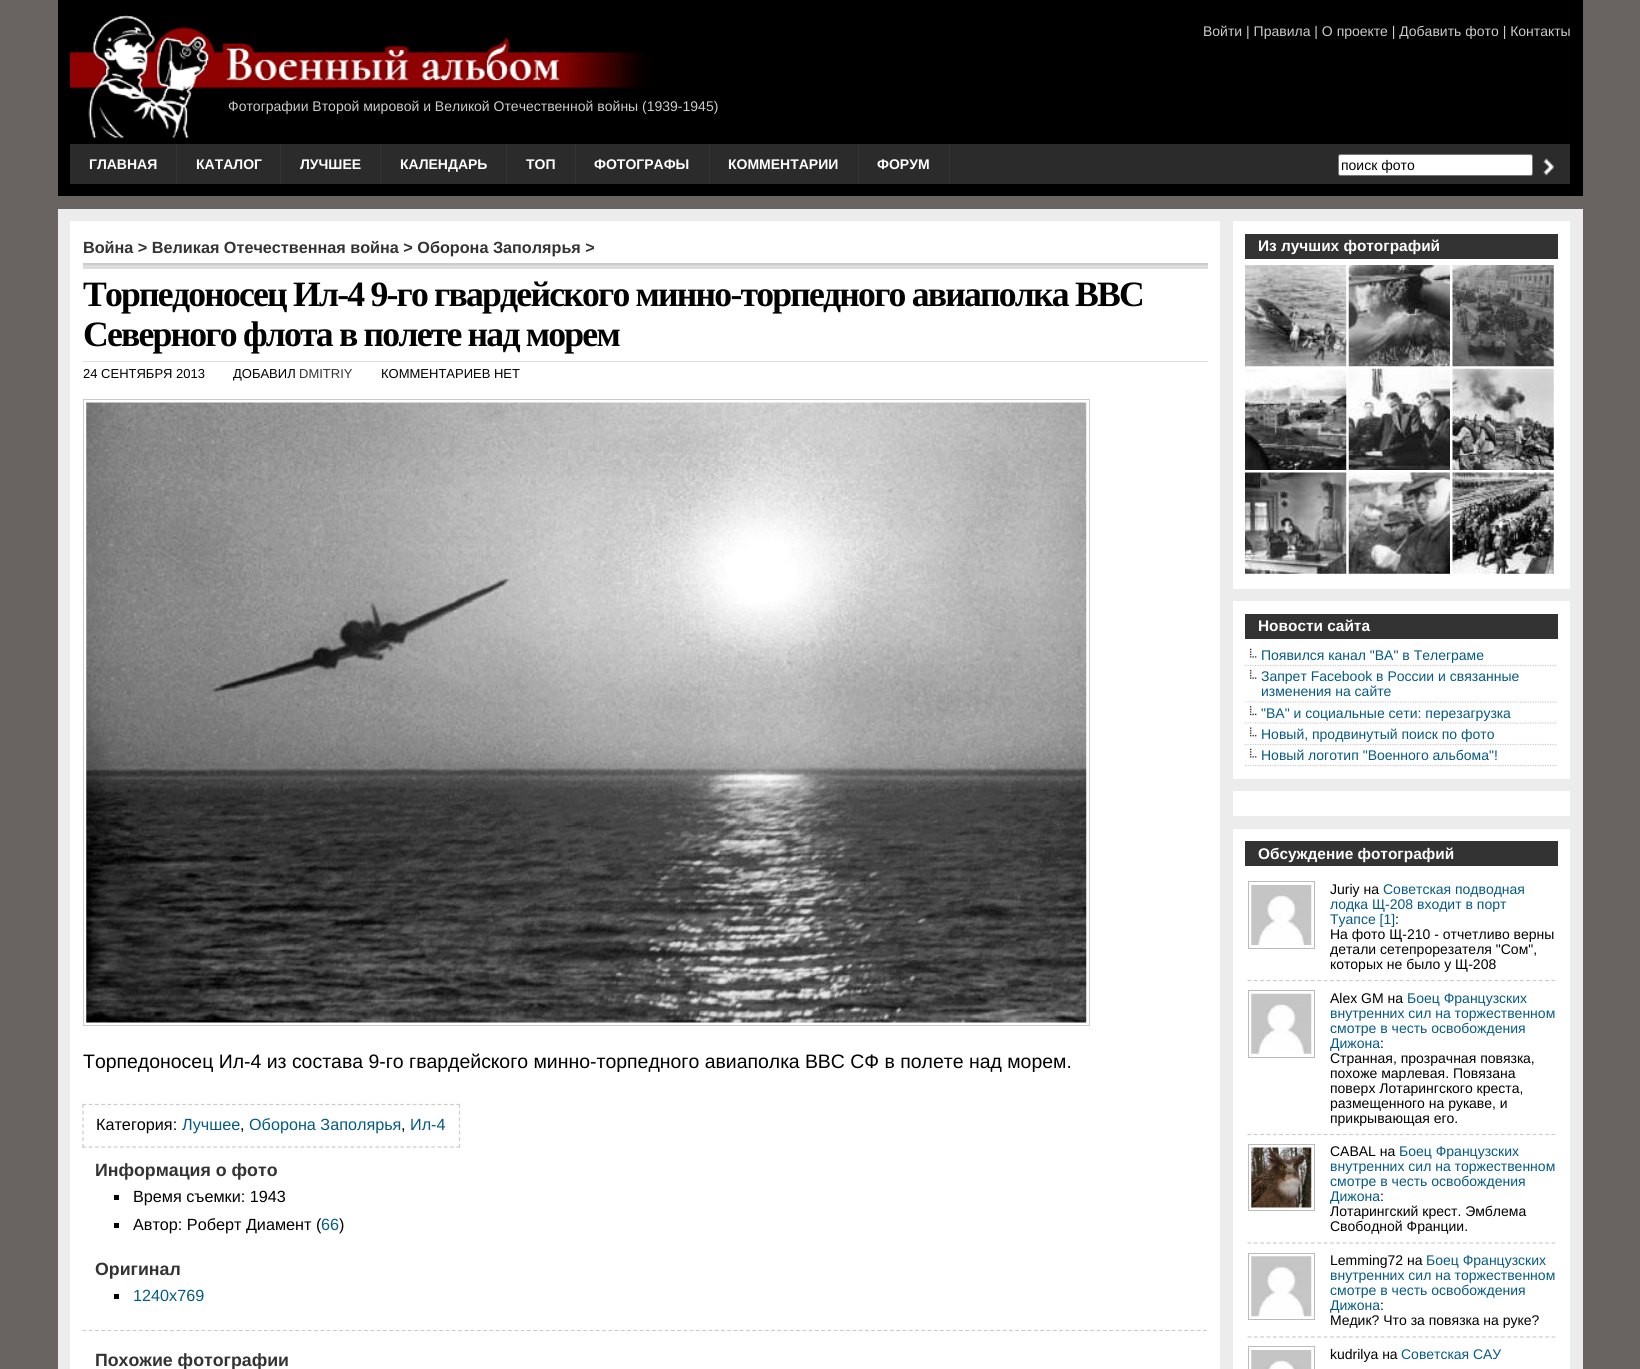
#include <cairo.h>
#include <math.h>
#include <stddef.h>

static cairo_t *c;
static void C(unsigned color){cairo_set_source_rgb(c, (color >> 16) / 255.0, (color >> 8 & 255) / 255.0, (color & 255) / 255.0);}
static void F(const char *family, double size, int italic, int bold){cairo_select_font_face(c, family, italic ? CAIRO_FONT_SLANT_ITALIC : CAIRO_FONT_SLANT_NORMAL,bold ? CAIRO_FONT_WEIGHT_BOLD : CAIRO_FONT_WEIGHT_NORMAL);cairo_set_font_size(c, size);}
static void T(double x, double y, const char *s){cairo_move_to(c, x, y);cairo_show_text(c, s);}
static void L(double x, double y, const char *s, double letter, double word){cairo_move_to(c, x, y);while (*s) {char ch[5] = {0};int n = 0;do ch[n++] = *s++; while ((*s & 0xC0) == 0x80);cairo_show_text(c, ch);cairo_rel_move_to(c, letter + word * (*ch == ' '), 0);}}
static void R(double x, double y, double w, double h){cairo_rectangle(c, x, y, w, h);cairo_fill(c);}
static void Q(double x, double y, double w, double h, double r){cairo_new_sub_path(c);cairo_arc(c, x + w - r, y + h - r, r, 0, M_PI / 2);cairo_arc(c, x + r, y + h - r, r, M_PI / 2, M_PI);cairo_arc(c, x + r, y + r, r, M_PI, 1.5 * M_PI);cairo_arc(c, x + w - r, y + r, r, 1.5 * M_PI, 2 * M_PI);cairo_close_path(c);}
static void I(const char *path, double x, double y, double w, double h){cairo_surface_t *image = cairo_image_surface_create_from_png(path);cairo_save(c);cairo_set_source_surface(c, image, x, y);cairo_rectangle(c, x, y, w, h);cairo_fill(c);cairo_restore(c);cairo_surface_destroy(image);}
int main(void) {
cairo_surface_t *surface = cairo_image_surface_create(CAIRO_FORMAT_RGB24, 1640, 1369);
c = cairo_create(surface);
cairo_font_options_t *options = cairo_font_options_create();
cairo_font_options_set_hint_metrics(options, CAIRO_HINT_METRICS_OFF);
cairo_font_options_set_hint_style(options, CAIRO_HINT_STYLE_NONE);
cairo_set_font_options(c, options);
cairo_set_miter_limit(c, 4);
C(0x696462);
cairo_paint(c);
C(0x000000);
R(58,0,1525,196);
F("Liberation Sans",14,0,0);
C(0xcccccc);
T(1203,36,"Войти | Правила | О проекте | Добавить фото | Контакты");
I("1.png",70,15,581,123);
T(228,111,"Фотографии Второй мировой и Великой Отечественной войны (1939-1945)");
C(0x2b2b2b);
R(70,144,1500,40);
C(0x333333);
R(176,144,1,40);
F("Liberation Sans",14,0,1);
C(0xffffff);
T(89,169,"ГЛАВНАЯ");
C(0x333333);
R(280,144,1,40);
C(0xffffff);
T(196,169,"КАТАЛОГ");
C(0x333333);
R(380,144,1,40);
C(0xffffff);
T(300,169,"ЛУЧШЕЕ");
C(0x333333);
R(506,144,1,40);
C(0xffffff);
T(400,169,"КАЛЕНДАРЬ");
C(0x333333);
R(575,144,1,40);
C(0xffffff);
T(526,169,"ТОП");
C(0x333333);
R(709,144,1,40);
C(0xffffff);
T(594,169,"ФОТОГРАФЫ");
C(0x333333);
R(858,144,1,40);
C(0xffffff);
T(728,169,"КОММЕНТАРИИ");
C(0x333333);
R(949,144,1,40);
C(0xffffff);
T(877,169,"ФОРУМ");
Q(1338.5,154.5,194,21,2);
cairo_fill_preserve(c);
C(0x767676);
cairo_set_line_width(c,1);
cairo_stroke(c);
F("Liberation Sans",14,0,0);
C(0x000000);
T(1341,170,"поиск фото");
I("2.png",1543,158,11,18);
C(0xececec);
R(58,209,1525,1160);
C(0xffffff);
R(70,221,1150,1148);
C(0xcccccc);
R(83,263,1125,2);
F("Liberation Sans",16.2,0,1);
C(0x333333);
T(83,253,"Война > Великая Отечественная война > Оборона Заполярья >");
C(0xdddddd);
R(83,265,1125,4);
R(83,361,1125,1);
F("Liberation Serif",35.65,0,1);
C(0x000000);
L(83,306,"Торпедоносец Ил-4 9-го гвардейского минно-торпедного авиаполка ВВС",-1.78,0);
L(83,346,"Северного флота в полете над морем",-1.78,0);
F("Liberation Sans",13,0,0);
T(83,378,"24 СЕНТЯБРЯ 2013");
T(233,378,"ДОБАВИЛ");
C(0x333333);
T(299,378,"DMITRIY");
C(0x000000);
T(381,378,"КОММЕНТАРИЕВ НЕТ");
cairo_rectangle(c,83.5,399.5,1006,626);
C(0xcccccc);
cairo_stroke(c);
I("3.png",86,402,1001,621);
F("Liberation Sans",19.45,0,0);
C(0x000000);
T(83,1068,"Торпедоносец Ил-4 из состава 9-го гвардейского минно-торпедного авиаполка ВВС СФ в полете над морем.");
cairo_new_path(c);
cairo_move_to(c,82.5,1104.5);
cairo_line_to(c,460,1104.5);
C(0xcccccc);
cairo_set_line_width(c,1.2);
cairo_set_dash(c,(double[]){3.75,2.48},2,0);
cairo_stroke(c);
cairo_new_path(c);
cairo_move_to(c,459.5,1104);
cairo_line_to(c,459.5,1147.5);
cairo_set_dash(c,(double[]){3.75,2.91},2,0);
cairo_stroke(c);
cairo_new_path(c);
cairo_move_to(c,82.5,1147);
cairo_line_to(c,460,1147);
cairo_set_dash(c,(double[]){3.75,2.48},2,0);
cairo_stroke(c);
cairo_new_path(c);
cairo_move_to(c,83,1104);
cairo_line_to(c,83,1147.5);
cairo_set_dash(c,(double[]){3.75,2.91},2,0);
cairo_stroke(c);
F("Liberation Sans",16.2,0,0);
C(0x000000);
T(96,1130,"Категория:");
C(0x055a85);
T(182,1130,"Лучшее");
C(0x000000);
T(240,1130,",");
C(0x055a85);
T(249,1130,"Оборона Заполярья");
C(0x000000);
T(401,1130,",");
C(0x055a85);
T(410,1130,"Ил-4");
cairo_new_path(c);
cairo_move_to(c,82.5,1330.5);
cairo_line_to(c,1207.5,1330.5);
C(0xcccccc);
cairo_set_dash(c,(double[]){3.75,2.51},2,0);
cairo_stroke(c);
C(0xffffff);
R(95,1329,536,1);
F("Liberation Sans",17.75,0,1);
C(0x333333);
T(95,1176,"Информация о фото");
C(0x000000);
R(114,1195,5,5);
F("Liberation Sans",16.2,0,0);
T(133,1202,"Время съемки: 1943");
R(114,1223,5,5);
T(133,1230,"Автор: Роберт Диамент (");
C(0x055a85);
T(321,1230,"66");
C(0x000000);
T(339,1230,")");
F("Liberation Sans",17.75,0,1);
C(0x333333);
T(95,1275,"Оригинал");
C(0x000000);
R(114,1294,5,5);
F("Liberation Sans",16.2,0,0);
C(0x055a85);
T(133,1301,"1240x769");
F("Liberation Sans",17.75,0,1);
C(0x333333);
T(95,1366,"Похожие фотографии");
C(0xffffff);
R(1233,221,337,368);
C(0x333333);
R(1245,234,313,25);
F("Liberation Sans",15.4,0,1);
C(0xffffff);
T(1258,251,"Из лучших фотографий");
I("4.png",1245,265,102,102);
I("5.png",1348,265,102,102);
I("6.png",1452,265,102,102);
I("7.png",1245,369,102,101);
I("8.png",1348,368,102,102);
I("9.png",1452,368,102,102);
I("10.png",1245,472,102,102);
I("11.png",1348,472,102,102);
I("12.png",1452,472,102,102);
R(1233,601,337,178);
C(0x333333);
R(1245,614,313,25);
C(0xffffff);
T(1258,631,"Новости сайта");
I("13.png",1249,648,8,10);
cairo_new_path(c);
cairo_move_to(c,1245,665.5);
cairo_line_to(c,1557.5,665.5);
C(0xcccccc);
cairo_set_dash(c,(double[]){1.25,1.25},2,0);
cairo_stroke(c);
F("Liberation Sans",14,0,0);
C(0x055a85);
T(1261,660,"Появился канал \"ВА\" в Телеграме");
I("14.png",1249,669,8,10);
cairo_new_path(c);
cairo_move_to(c,1245,702);
cairo_line_to(c,1557.5,702);
C(0xcccccc);
cairo_stroke(c);
C(0x055a85);
T(1261,681,"Запрет Facebook в России и связанные");
T(1261,696,"изменения на сайте");
I("15.png",1245,702,14,14);
cairo_new_path(c);
cairo_move_to(c,1245,723);
cairo_line_to(c,1557.5,723);
C(0xcccccc);
cairo_stroke(c);
C(0x055a85);
T(1261,718,"\"ВА\" и социальные сети: перезагрузка");
I("16.png",1245,723,14,14);
cairo_new_path(c);
cairo_move_to(c,1245,744.5);
cairo_line_to(c,1557.5,744.5);
C(0xcccccc);
cairo_stroke(c);
C(0x055a85);
T(1261,739,"Новый, продвинутый поиск по фото");
I("17.png",1245,745,12,13);
cairo_new_path(c);
cairo_move_to(c,1245,765.5);
cairo_line_to(c,1557.5,765.5);
C(0xcccccc);
cairo_stroke(c);
C(0x055a85);
T(1261,760,"Новый логотип \"Военного альбома\"!");
C(0xffffff);
R(1233,791,337,25);
R(1233,829,337,540);
C(0x333333);
R(1245,841,313,25);
F("Liberation Sans",15.4,0,1);
C(0xffffff);
T(1258,859,"Обсуждение фотографий");
cairo_new_path(c);
cairo_move_to(c,1247.5,980.5);
cairo_line_to(c,1327.5,980.5);
C(0xcccccc);
cairo_set_dash(c,(double[]){3.75,2.6},2,0);
cairo_stroke(c);
cairo_rectangle(c,1248.5,881.5,66,67);
C(0xbbbbbb);
cairo_set_line_width(c,1);
cairo_set_dash(c,NULL,0,0);
cairo_stroke(c);
I("18.png",1251,885,61,60);
cairo_new_path(c);
cairo_move_to(c,1330,980.5);
cairo_line_to(c,1555,980.5);
C(0xcccccc);
cairo_set_line_width(c,1.2);
cairo_set_dash(c,(double[]){3.75,2.58},2,0);
cairo_stroke(c);
F("Liberation Sans",14,0,0);
C(0x000000);
T(1330,894,"Juriy на");
C(0x055a85);
T(1383,894,"Советская подводная");
T(1330,909,"лодка Щ-208 входит в порт");
T(1330,924,"Туапсе [1]");
C(0x000000);
T(1395,924,":");
T(1330,939,"На фото Щ-210 - отчетливо верны");
T(1330,954,"детали сетепрорезателя \"Сом\",");
T(1330,969,"которых не было у Щ-208");
cairo_new_path(c);
cairo_move_to(c,1247.5,1134.5);
cairo_line_to(c,1327.5,1134.5);
C(0xcccccc);
cairo_set_dash(c,(double[]){3.75,2.6},2,0);
cairo_stroke(c);
cairo_rectangle(c,1248.5,990.5,66,67);
C(0xbbbbbb);
cairo_set_line_width(c,1);
cairo_set_dash(c,NULL,0,0);
cairo_stroke(c);
I("19.png",1251,993,61,61);
cairo_new_path(c);
cairo_move_to(c,1330,1134.5);
cairo_line_to(c,1555,1134.5);
C(0xcccccc);
cairo_set_line_width(c,1.2);
cairo_set_dash(c,(double[]){3.75,2.58},2,0);
cairo_stroke(c);
C(0x000000);
T(1330,1003,"Alex GM на");
C(0x055a85);
T(1407,1003,"Боец Французских");
T(1330,1018,"внутренних сил на торжественном");
T(1330,1033,"смотре в честь освобождения");
T(1330,1048,"Дижона");
C(0x000000);
T(1380,1048,":");
T(1330,1063,"Странная, прозрачная повязка,");
T(1330,1078,"похоже марлевая. Повязана");
T(1330,1093,"поверх Лотарингского креста,");
T(1330,1108,"размещенного на рукаве, и");
T(1330,1123,"прикрывающая его.");
cairo_new_path(c);
cairo_move_to(c,1247.5,1243);
cairo_line_to(c,1327.5,1243);
C(0xcccccc);
cairo_set_dash(c,(double[]){3.75,2.6},2,0);
cairo_stroke(c);
cairo_rectangle(c,1248.5,1144.5,66,66);
C(0xbbbbbb);
cairo_set_line_width(c,1);
cairo_set_dash(c,NULL,0,0);
cairo_stroke(c);
I("20.png",1251,1147,61,61);
cairo_new_path(c);
cairo_move_to(c,1330,1243);
cairo_line_to(c,1555,1243);
C(0xcccccc);
cairo_set_line_width(c,1.2);
cairo_set_dash(c,(double[]){3.75,2.58},2,0);
cairo_stroke(c);
C(0x000000);
T(1330,1156,"CABAL на");
C(0x055a85);
T(1399,1156,"Боец Французских");
T(1330,1171,"внутренних сил на торжественном");
T(1330,1186,"смотре в честь освобождения");
T(1330,1201,"Дижона");
C(0x000000);
T(1380,1201,":");
T(1330,1216,"Лотарингский крест. Эмблема");
T(1330,1231,"Свободной Франции.");
cairo_new_path(c);
cairo_move_to(c,1247.5,1337);
cairo_line_to(c,1327.5,1337);
C(0xcccccc);
cairo_set_dash(c,(double[]){3.75,2.6},2,0);
cairo_stroke(c);
cairo_rectangle(c,1248.5,1253.5,66,66);
C(0xbbbbbb);
cairo_set_line_width(c,1);
cairo_set_dash(c,NULL,0,0);
cairo_stroke(c);
I("21.png",1251,1256,61,61);
cairo_new_path(c);
cairo_move_to(c,1330,1337);
cairo_line_to(c,1555,1337);
C(0xcccccc);
cairo_set_line_width(c,1.2);
cairo_set_dash(c,(double[]){3.75,2.58},2,0);
cairo_stroke(c);
C(0x000000);
T(1330,1265,"Lemming72 на");
C(0x055a85);
T(1426,1265,"Боец Французских");
T(1330,1280,"внутренних сил на торжественном");
T(1330,1295,"смотре в честь освобождения");
T(1330,1310,"Дижона");
C(0x000000);
T(1380,1310,":");
T(1330,1325,"Медик? Что за повязка на руке?");
cairo_rectangle(c,1248.5,1346.5,66,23);
C(0xbbbbbb);
cairo_set_line_width(c,1);
cairo_set_dash(c,NULL,0,0);
cairo_stroke(c);
I("22.png",1251,1350,61,19);
C(0x000000);
T(1330,1359,"kudrilya на");
C(0x055a85);
T(1401,1359,"Советская САУ");
cairo_surface_write_to_png(surface, "o.png");
cairo_font_options_destroy(options);
cairo_destroy(c);
cairo_surface_destroy(surface);
return 0;
}
